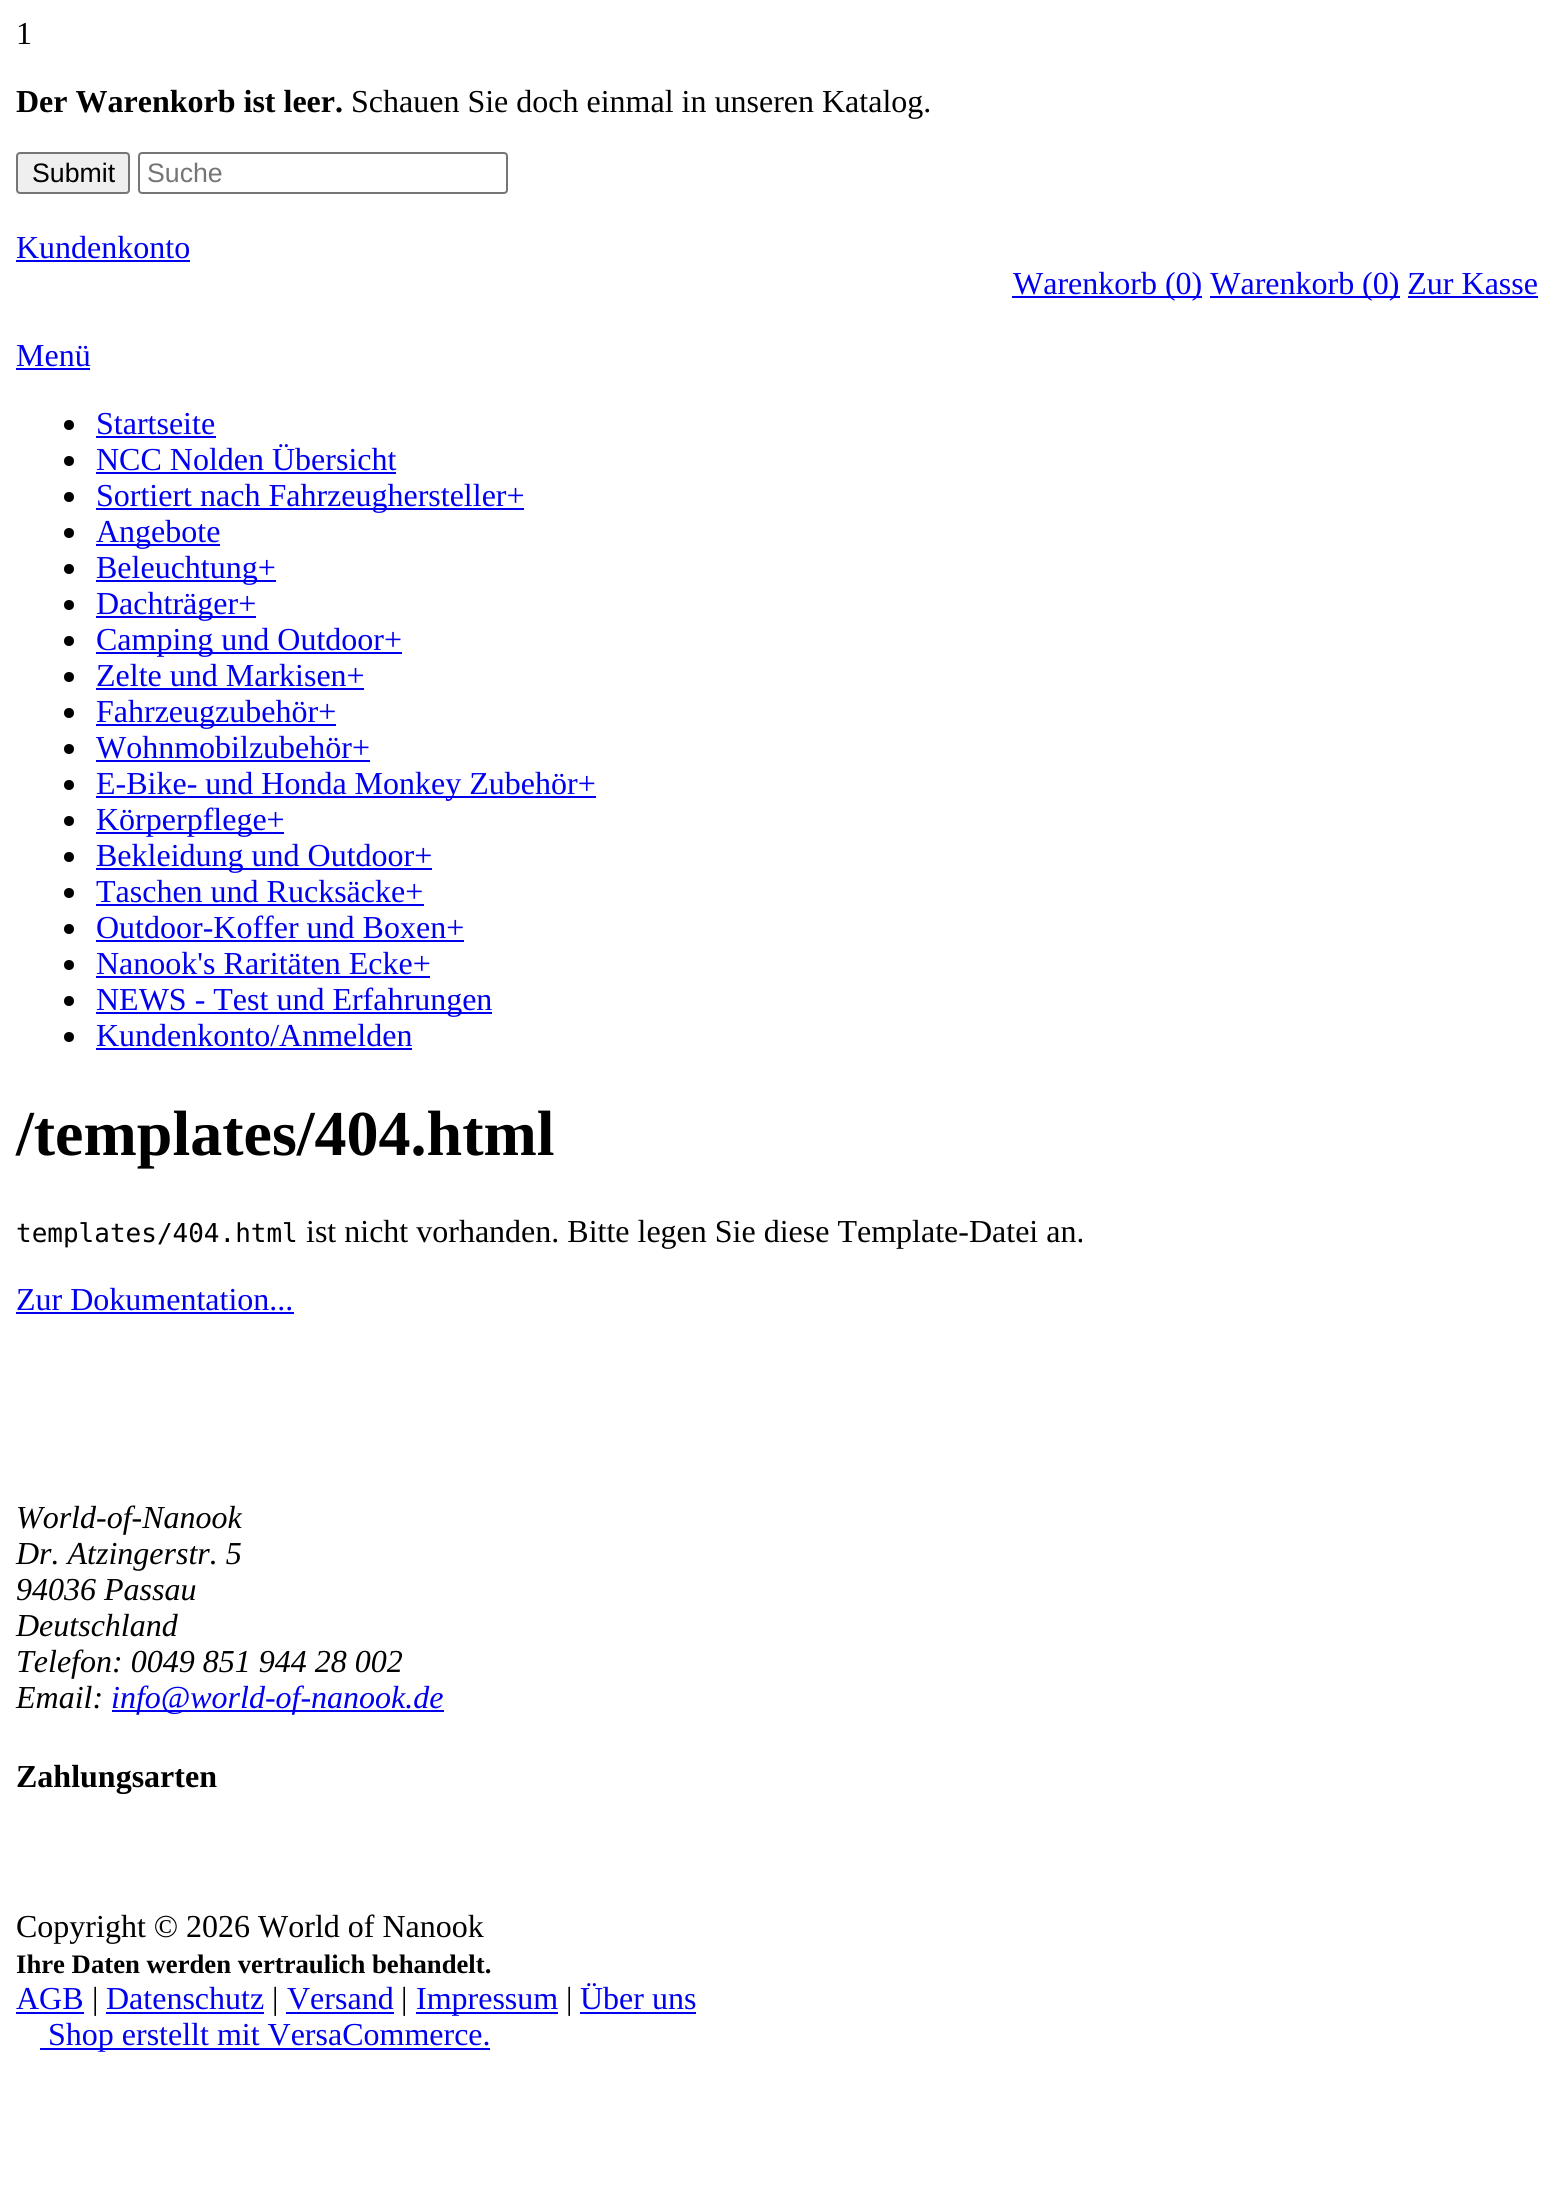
#include <cairo.h>
#include <math.h>
#include <stddef.h>

static cairo_t *c;
static void C(unsigned color){cairo_set_source_rgb(c, (color >> 16) / 255.0, (color >> 8 & 255) / 255.0, (color & 255) / 255.0);}
static void F(const char *family, double size, int italic, int bold){cairo_select_font_face(c, family, italic ? CAIRO_FONT_SLANT_ITALIC : CAIRO_FONT_SLANT_NORMAL,bold ? CAIRO_FONT_WEIGHT_BOLD : CAIRO_FONT_WEIGHT_NORMAL);cairo_set_font_size(c, size);}
static void T(double x, double y, const char *s){cairo_move_to(c, x, y);cairo_show_text(c, s);}
static void R(double x, double y, double w, double h){cairo_rectangle(c, x, y, w, h);cairo_fill(c);}
static void Q(double x, double y, double w, double h, double r){cairo_new_sub_path(c);cairo_arc(c, x + w - r, y + h - r, r, 0, M_PI / 2);cairo_arc(c, x + r, y + h - r, r, M_PI / 2, M_PI);cairo_arc(c, x + r, y + r, r, M_PI, 1.5 * M_PI);cairo_arc(c, x + w - r, y + r, r, 1.5 * M_PI, 2 * M_PI);cairo_close_path(c);}
int main(void) {
cairo_surface_t *surface = cairo_image_surface_create(CAIRO_FORMAT_RGB24, 1553, 2206);
c = cairo_create(surface);
cairo_font_options_t *options = cairo_font_options_create();
cairo_font_options_set_hint_metrics(options, CAIRO_HINT_METRICS_OFF);
cairo_font_options_set_hint_style(options, CAIRO_HINT_STYLE_NONE);
cairo_set_font_options(c, options);
cairo_set_miter_limit(c, 4);
C(0xffffff);
cairo_paint(c);
F("Liberation Serif",32,0,0);
C(0x000000);
T(16,44,"1");
F("Liberation Serif",32,0,1);
T(16,112,"Der Warenkorb ist leer.");
F("Liberation Serif",32,0,0);
T(351,112,"Schauen Sie doch einmal in unseren Katalog.");
C(0xefefef);
Q(17,153,112,40,3);
cairo_fill_preserve(c);
C(0x767676);
cairo_stroke(c);
F("Liberation Sans",26.7,0,0);
C(0x000000);
T(32,182,"Submit");
Q(139,153,368,40,3);
C(0x767676);
cairo_stroke(c);
C(0x757575);
T(147,182,"Suche");
F("Liberation Serif",32,0,0);
C(0x0000ee);
T(16,258,"Kundenkonto");
R(16,260,174,2);
R(1012,296,190,2);
T(1013,294,"Warenkorb (0) Warenkorb");
R(1210,296,190,2);
T(1362,294,"(0) Zur Kasse");
R(1408,296,130,2);
T(16,366,"Menü");
R(16,368,74,2);
C(0x000000);
cairo_new_path(c);
cairo_arc(c,69,425,5,0,2 * M_PI);
cairo_fill(c);
C(0x0000ee);
T(96,434,"Startseite");
R(96,436,120,2);
C(0x000000);
cairo_new_path(c);
cairo_arc(c,69,461,5,0,2 * M_PI);
cairo_fill(c);
C(0x0000ee);
T(96,470,"NCC Nolden Übersicht");
R(96,472,300,2);
C(0x000000);
cairo_new_path(c);
cairo_arc(c,69,497,5,0,2 * M_PI);
cairo_fill(c);
C(0x0000ee);
R(96,508,410,2);
T(96,506,"Sortiert nach Fahrzeughersteller+");
R(506,508,18,2);
C(0x000000);
cairo_new_path(c);
cairo_arc(c,69,533,5,0,2 * M_PI);
cairo_fill(c);
C(0x0000ee);
R(96,544,124,2);
T(96,542,"Angebote");
C(0x000000);
cairo_new_path(c);
cairo_arc(c,69,569,5,0,2 * M_PI);
cairo_fill(c);
C(0x0000ee);
R(96,580,180,2);
T(96,578,"Beleuchtung+");
C(0x000000);
cairo_new_path(c);
cairo_arc(c,69,605,5,0,2 * M_PI);
cairo_fill(c);
C(0x0000ee);
R(96,616,160,2);
T(96,614,"Dachträger+");
C(0x000000);
cairo_new_path(c);
cairo_arc(c,69,641,5,0,2 * M_PI);
cairo_fill(c);
C(0x0000ee);
R(96,652,306,2);
T(96,650,"Camping und Outdoor+");
C(0x000000);
cairo_new_path(c);
cairo_arc(c,69,677,5,0,2 * M_PI);
cairo_fill(c);
C(0x0000ee);
T(96,686,"Zelte und Markisen+");
R(96,688,268,2);
C(0x000000);
cairo_new_path(c);
cairo_arc(c,69,713,5,0,2 * M_PI);
cairo_fill(c);
C(0x0000ee);
R(96,724,240,2);
T(96,722,"Fahrzeugzubehör+");
C(0x000000);
cairo_new_path(c);
cairo_arc(c,69,749,5,0,2 * M_PI);
cairo_fill(c);
C(0x0000ee);
T(96,758,"Wohnmobilzubehör+");
R(96,760,274,2);
C(0x000000);
cairo_new_path(c);
cairo_arc(c,69,785,5,0,2 * M_PI);
cairo_fill(c);
C(0x0000ee);
R(96,796,500,2);
T(96,794,"E-Bike- und Honda Monkey Zubehör+");
C(0x000000);
cairo_new_path(c);
cairo_arc(c,69,821,5,0,2 * M_PI);
cairo_fill(c);
C(0x0000ee);
R(96,832,188,2);
T(96,830,"Körperpflege+");
C(0x000000);
cairo_new_path(c);
cairo_arc(c,69,857,5,0,2 * M_PI);
cairo_fill(c);
C(0x0000ee);
R(96,868,336,2);
T(96,866,"Bekleidung und Outdoor+");
C(0x000000);
cairo_new_path(c);
cairo_arc(c,69,893,5,0,2 * M_PI);
cairo_fill(c);
C(0x0000ee);
T(96,902,"Taschen und Rucksäcke+");
R(96,904,328,2);
C(0x000000);
cairo_new_path(c);
cairo_arc(c,69,929,5,0,2 * M_PI);
cairo_fill(c);
C(0x0000ee);
T(96,938,"Outdoor-Koffer und Boxen+");
R(96,940,368,2);
C(0x000000);
cairo_new_path(c);
cairo_arc(c,69,965,5,0,2 * M_PI);
cairo_fill(c);
C(0x0000ee);
T(96,974,"Nanook's Raritäten Ecke+");
R(96,976,334,2);
C(0x000000);
cairo_new_path(c);
cairo_arc(c,69,1001,5,0,2 * M_PI);
cairo_fill(c);
C(0x0000ee);
R(96,1012,396,2);
T(96,1010,"NEWS - Test und Erfahrungen");
C(0x000000);
cairo_new_path(c);
cairo_arc(c,69,1037,5,0,2 * M_PI);
cairo_fill(c);
C(0x0000ee);
T(96,1046,"Kundenkonto/Anmelden");
R(96,1048,316,2);
F("Liberation Serif",64,0,1);
C(0x000000);
T(16,1155,"/templates/404.html");
F("DejaVu Sans Mono",26,0,0);
T(16,1242,"templates/404.html");
F("Liberation Serif",32,0,0);
T(306,1242,"ist nicht vorhanden. Bitte legen Sie diese Template-Datei an.");
C(0x0000ee);
T(16,1310,"Zur Dokumentation...");
R(16,1312,278,2);
F("Liberation Serif",32,1,0);
C(0x000000);
T(16,1528,"World-of-Nanook");
T(16,1564,"Dr. Atzingerstr. 5");
T(16,1600,"94036 Passau");
T(16,1636,"Deutschland");
T(16,1672,"Telefon: 0049 851 944 28 002");
T(16,1708,"Email:");
C(0x0000ee);
R(112,1710,332,2);
T(111,1708,"info@world-of-nanook.de");
F("Liberation Serif",32,0,1);
C(0x000000);
T(16,1787,"Zahlungsarten");
F("Liberation Serif",32,0,0);
T(16,1937,"Copyright © 2026 World of Nanook");
F("Liberation Serif",26.7,0,1);
T(16,1973,"Ihre Daten werden vertraulich behandelt.");
F("Liberation Serif",32,0,0);
C(0x0000ee);
T(16,2009,"AGB");
R(16,2012,68,2);
C(0x000000);
T(92,2009,"|");
C(0x0000ee);
T(106,2009,"Datenschutz");
R(106,2012,158,2);
C(0x000000);
T(272,2009,"|");
C(0x0000ee);
T(287,2009,"Versand");
R(286,2012,108,2);
C(0x000000);
T(401,2009,"|");
C(0x0000ee);
R(416,2012,142,2);
T(416,2009,"Impressum");
C(0x000000);
T(566,2009,"|");
C(0x0000ee);
T(580,2009,"Über uns");
R(580,2012,116,2);
R(40,2048,450,2);
T(48,2045,"Shop erstellt mit VersaCommerce.");
cairo_surface_write_to_png(surface, "o.png");
cairo_font_options_destroy(options);
cairo_destroy(c);
cairo_surface_destroy(surface);
return 0;
}
